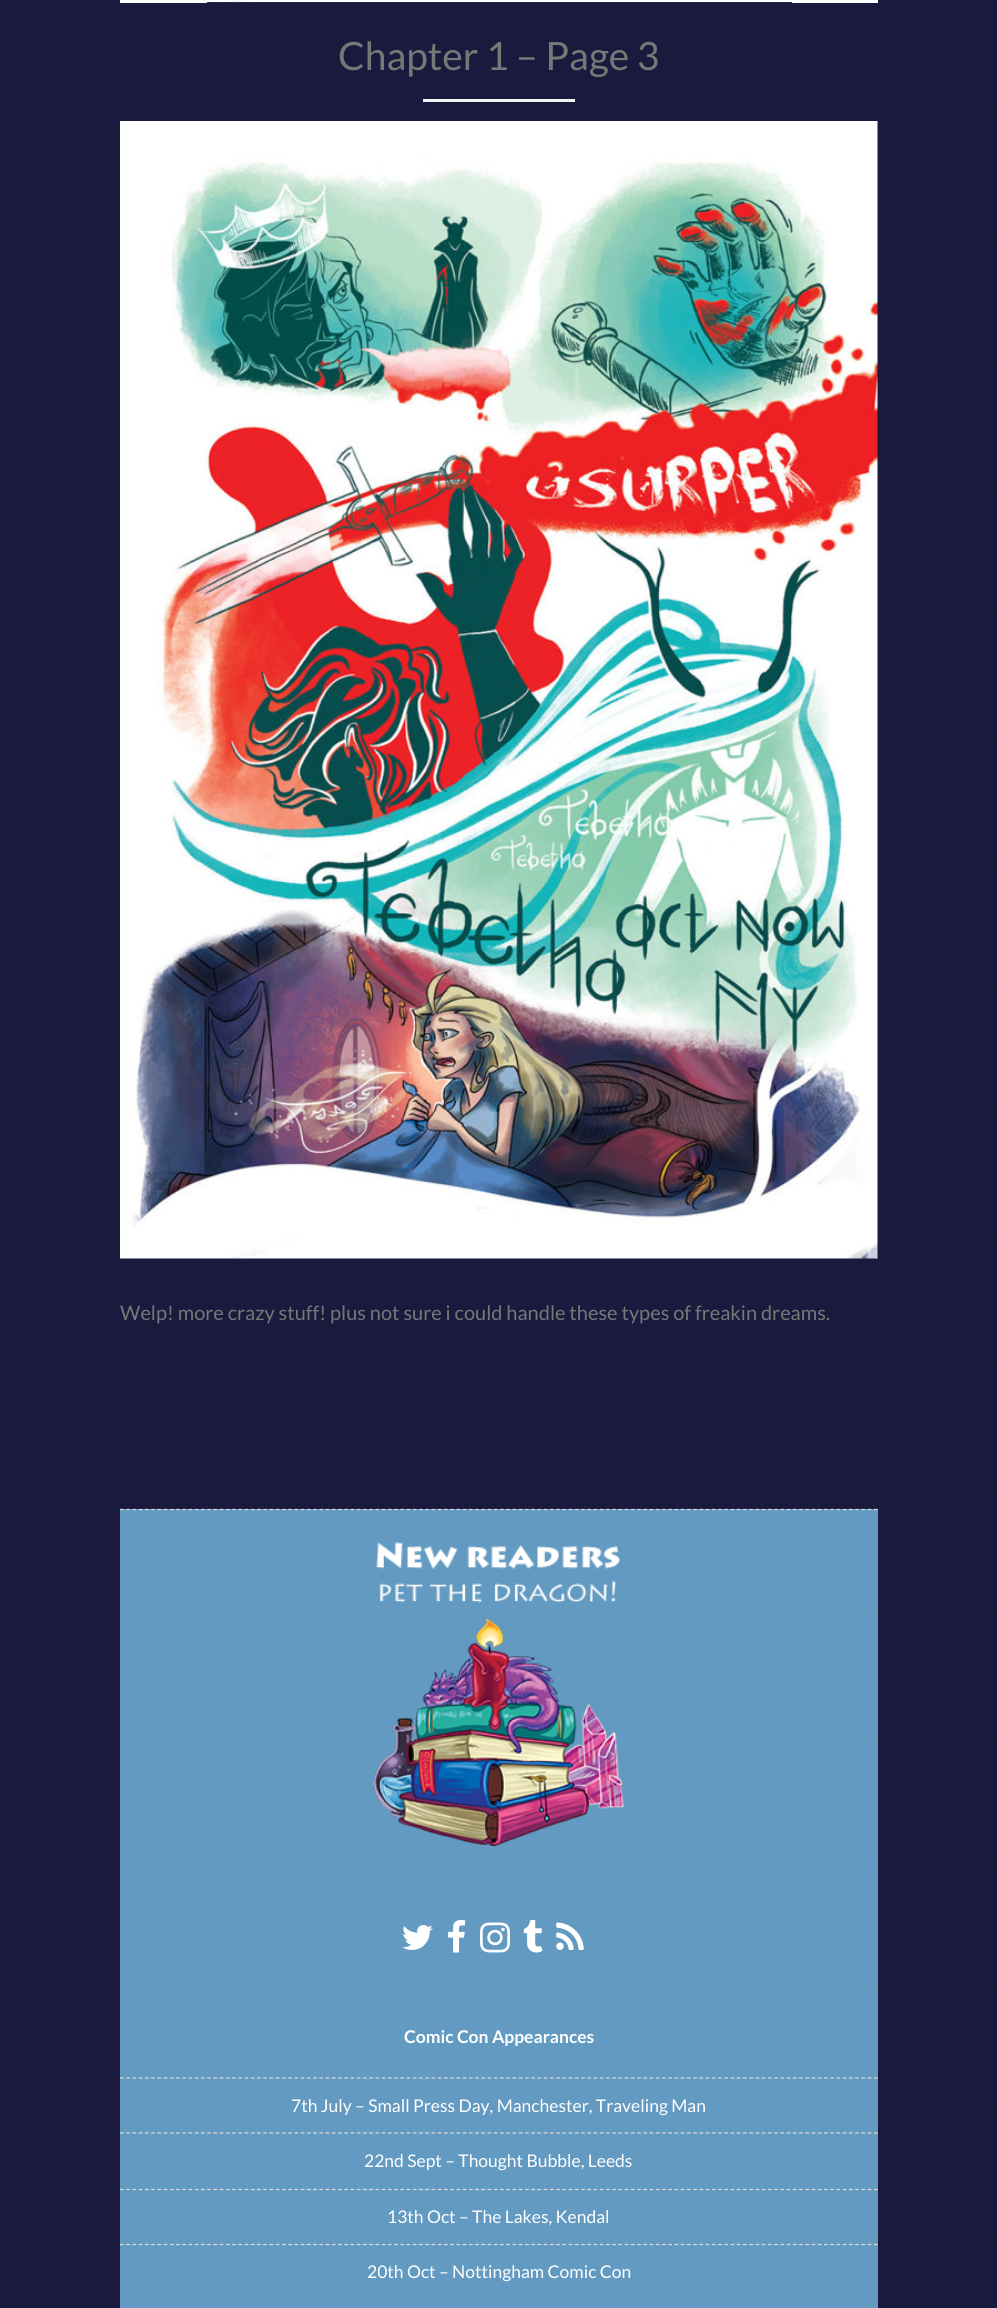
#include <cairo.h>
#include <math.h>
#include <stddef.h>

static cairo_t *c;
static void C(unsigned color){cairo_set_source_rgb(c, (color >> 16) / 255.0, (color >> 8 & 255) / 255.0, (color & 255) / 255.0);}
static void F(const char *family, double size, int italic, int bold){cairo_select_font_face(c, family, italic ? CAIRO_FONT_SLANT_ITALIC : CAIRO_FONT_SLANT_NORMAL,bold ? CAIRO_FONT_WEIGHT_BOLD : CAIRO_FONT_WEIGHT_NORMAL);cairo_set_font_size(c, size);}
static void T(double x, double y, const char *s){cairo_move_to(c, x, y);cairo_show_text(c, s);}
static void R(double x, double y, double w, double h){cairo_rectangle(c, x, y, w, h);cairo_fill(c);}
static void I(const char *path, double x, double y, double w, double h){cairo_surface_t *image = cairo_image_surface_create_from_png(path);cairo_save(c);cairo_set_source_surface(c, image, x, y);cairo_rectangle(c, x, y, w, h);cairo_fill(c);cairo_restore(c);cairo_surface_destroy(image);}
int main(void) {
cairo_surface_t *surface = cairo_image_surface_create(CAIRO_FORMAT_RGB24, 997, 2308);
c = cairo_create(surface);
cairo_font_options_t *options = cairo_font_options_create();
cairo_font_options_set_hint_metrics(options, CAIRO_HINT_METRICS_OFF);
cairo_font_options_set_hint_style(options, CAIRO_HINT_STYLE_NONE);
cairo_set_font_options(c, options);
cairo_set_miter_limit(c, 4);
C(0x1a1a3e);
cairo_paint(c);
I("1.png",3,35,993,2267);
I("2.png",205,0,589,3);
cairo_save(c);
cairo_rectangle(c,120,0,758,3);
cairo_clip(c);
C(0xffffff);
cairo_new_path(c);
cairo_move_to(c,118,4);
cairo_line_to(c,208,4);
cairo_curve_to(c,199,-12,186,1,175,-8);
cairo_curve_to(c,168,-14,167,-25,160,-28);
cairo_curve_to(c,156,-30,151,-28,147,-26);
cairo_curve_to(c,152,-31,152,-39,146,-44);
cairo_curve_to(c,140,-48,132,-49,128,-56);
cairo_curve_to(c,123,-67,132,-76,118,-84);
cairo_close_path(c);
cairo_fill(c);
cairo_restore(c);
cairo_save(c);
cairo_rectangle(c,785,0,93,3);
cairo_clip(c);
C(0xffffff);
cairo_new_path(c);
cairo_move_to(c,791,4);
cairo_curve_to(c,802,-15,817,9,830,-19);
cairo_curve_to(c,835,-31,844,-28,848,-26);
cairo_line_to(c,849,-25);
cairo_line_to(c,848,-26);
cairo_curve_to(c,846,-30,843,-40,856,-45);
cairo_curve_to(c,885,-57,859,-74,879,-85);
cairo_line_to(c,879,4);
cairo_fill(c);
cairo_restore(c);
F("Lato",39,0,0);
C(0x777777);
T(338,70,"Chapter 1 – Page 3");
C(0xf3f3f3);
R(423,99,152,3);
I("3.png",120,121,758,1138);
F("Lato",20,0,0);
C(0x777777);
T(120,1320,"Welp! more crazy stuff! plus not sure i could handle these types of freakin dreams.");
C(0x1a1a3e);
R(444,1410,2,1);
C(0x639ac1);
R(120,1509,758,799);
cairo_new_path(c);
cairo_move_to(c,120,1509.5);
cairo_line_to(c,877.5,1509.5);
C(0xdddddd);
cairo_set_line_width(c,1.2);
cairo_set_dash(c,(double[]){3.75,2.48},2,0);
cairo_stroke(c);
I("4.png",373,1542,251,304);
I("5.png",402,1925,31,25);
I("6.png",448,1920,17,33);
I("7.png",480,1922,30,31);
I("8.png",523,1920,20,33);
I("9.png",556,1922,28,28);
F("Lato",17.5,0,1);
C(0xffffff);
T(404,2043,"Comic Con Appearances");
cairo_new_path(c);
cairo_move_to(c,120,2078);
cairo_line_to(c,877.5,2078);
C(0xdddddd);
cairo_stroke(c);
F("Lato",17.5,0,0);
C(0xffffff);
T(291,2112,"7th July – Small Press Day, Manchester, Traveling Man");
cairo_new_path(c);
cairo_move_to(c,120,2133);
cairo_line_to(c,877.5,2133);
C(0xdddddd);
cairo_stroke(c);
C(0xffffff);
T(364,2167,"22nd Sept – Thought Bubble, Leeds");
cairo_new_path(c);
cairo_move_to(c,120,2189.5);
cairo_line_to(c,877.5,2189.5);
C(0xdddddd);
cairo_stroke(c);
C(0xffffff);
T(387,2223,"13th Oct – The Lakes, Kendal");
cairo_new_path(c);
cairo_move_to(c,120,2244.5);
cairo_line_to(c,877.5,2244.5);
C(0xdddddd);
cairo_stroke(c);
C(0xffffff);
T(367,2278,"20th Oct – Nottingham Comic Con");
cairo_surface_write_to_png(surface, "o.png");
cairo_font_options_destroy(options);
cairo_destroy(c);
cairo_surface_destroy(surface);
return 0;
}
